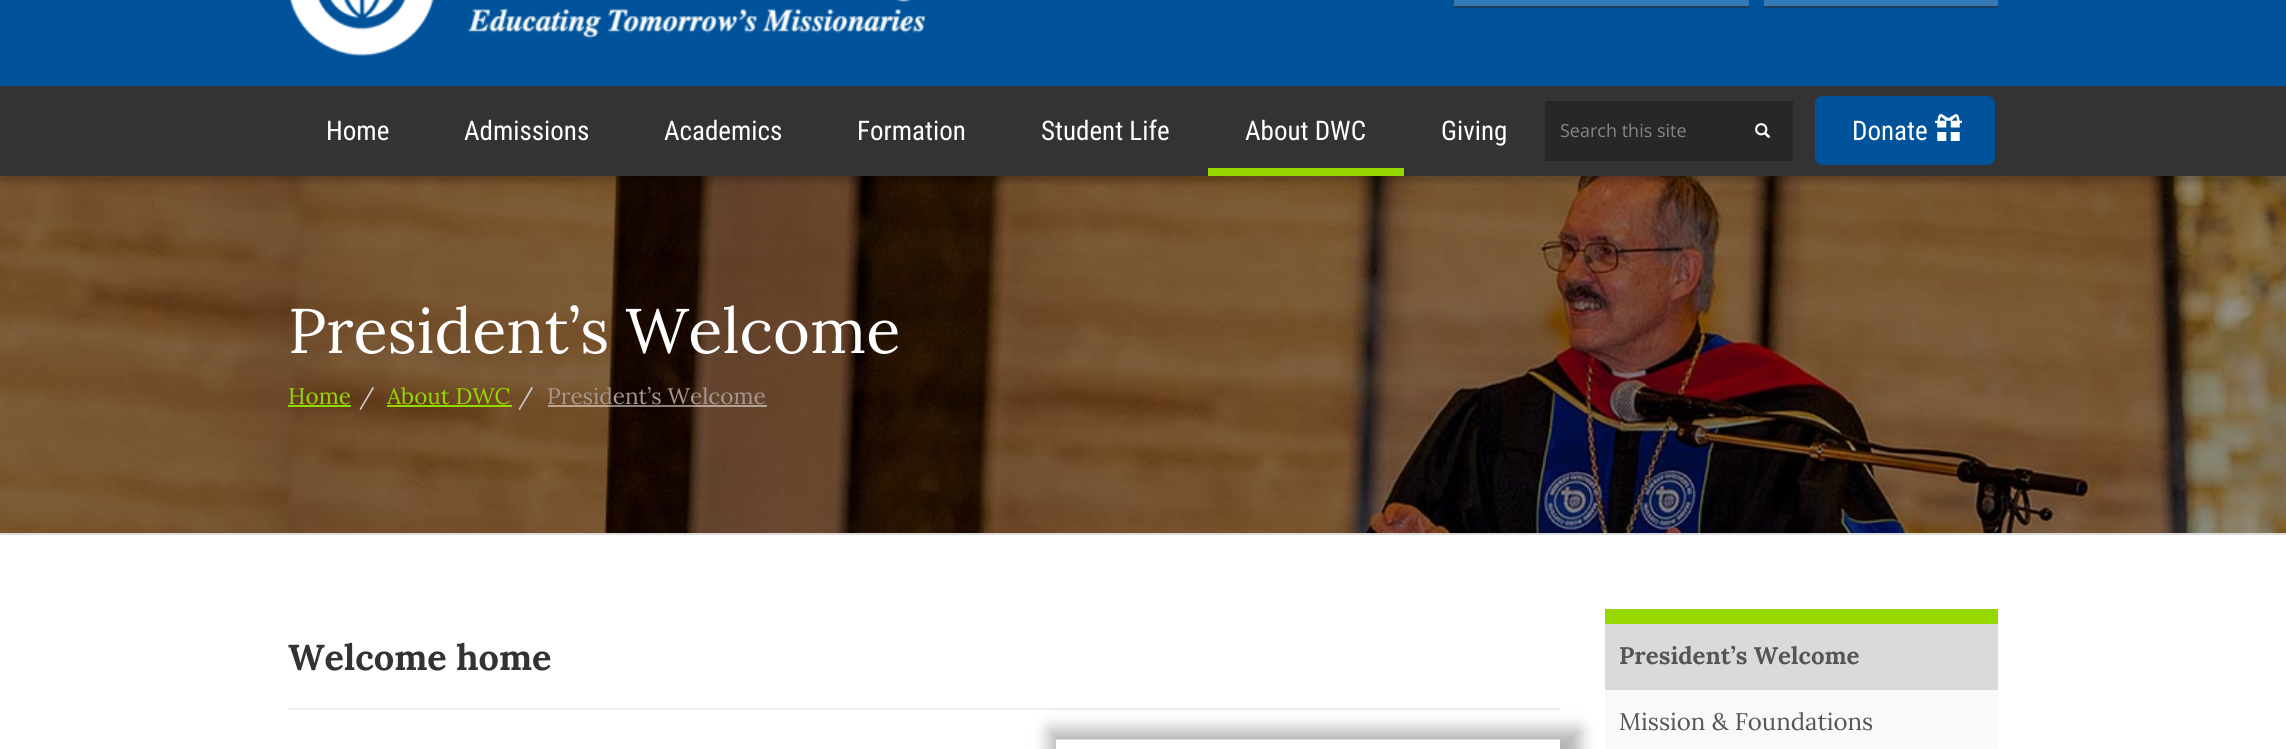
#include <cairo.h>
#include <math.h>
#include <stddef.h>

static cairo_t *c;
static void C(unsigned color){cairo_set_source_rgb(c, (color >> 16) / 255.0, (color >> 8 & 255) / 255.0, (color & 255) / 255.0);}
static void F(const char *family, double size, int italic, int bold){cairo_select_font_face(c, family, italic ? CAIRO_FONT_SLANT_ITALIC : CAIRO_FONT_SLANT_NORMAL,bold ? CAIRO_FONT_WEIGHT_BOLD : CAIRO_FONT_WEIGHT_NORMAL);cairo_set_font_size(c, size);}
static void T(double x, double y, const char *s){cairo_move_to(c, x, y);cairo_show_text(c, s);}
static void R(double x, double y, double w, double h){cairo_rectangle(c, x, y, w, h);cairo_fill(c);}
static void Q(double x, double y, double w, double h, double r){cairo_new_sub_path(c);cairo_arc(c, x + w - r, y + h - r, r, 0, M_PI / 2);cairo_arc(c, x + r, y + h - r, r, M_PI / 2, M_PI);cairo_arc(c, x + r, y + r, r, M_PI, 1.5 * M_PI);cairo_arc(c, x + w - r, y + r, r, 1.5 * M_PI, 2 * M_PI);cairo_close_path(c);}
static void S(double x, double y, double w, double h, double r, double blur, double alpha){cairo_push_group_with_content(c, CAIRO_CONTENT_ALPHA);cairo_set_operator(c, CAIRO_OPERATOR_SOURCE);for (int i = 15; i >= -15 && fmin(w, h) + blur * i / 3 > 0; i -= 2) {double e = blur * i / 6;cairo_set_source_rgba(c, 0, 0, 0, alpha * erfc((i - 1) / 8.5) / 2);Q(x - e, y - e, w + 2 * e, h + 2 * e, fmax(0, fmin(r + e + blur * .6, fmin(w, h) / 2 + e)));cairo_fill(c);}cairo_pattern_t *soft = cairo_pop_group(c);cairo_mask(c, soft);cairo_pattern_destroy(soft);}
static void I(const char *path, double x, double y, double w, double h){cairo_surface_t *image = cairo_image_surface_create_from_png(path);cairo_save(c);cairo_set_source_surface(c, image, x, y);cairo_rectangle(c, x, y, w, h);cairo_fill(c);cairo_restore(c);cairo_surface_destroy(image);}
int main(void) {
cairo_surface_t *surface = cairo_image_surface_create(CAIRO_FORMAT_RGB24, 2286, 749);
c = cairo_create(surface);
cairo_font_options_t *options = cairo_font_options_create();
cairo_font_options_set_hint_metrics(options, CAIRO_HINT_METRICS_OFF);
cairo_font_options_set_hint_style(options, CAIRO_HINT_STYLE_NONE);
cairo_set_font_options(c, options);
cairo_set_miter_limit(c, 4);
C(0xffffff);
cairo_paint(c);
C(0x00539b);
R(0,0,2286,86);
I("1.png",289,0,637,56);
C(0x337ab7);
R(1454,0,295,6);
C(0x1a3d5c);
R(1454,6,295,2);
C(0x337ab7);
R(1764,0,234,6);
C(0x1a3d5c);
R(1764,6,234,2);
I("4.png",0,176,2286,357);
C(0x000000);
S(0,92,2286,90,0,3,.2);
C(0x333333);
R(0,86,2286,90);
F("Roboto Condensed",27,0,0);
C(0xffffff);
T(326,140,"Home");
T(464,140,"Admissions");
T(664,140,"Academics");
T(857,140,"Formation");
T(1041,140,"Student Life");
T(1245,140,"About DWC");
C(0x97d700);
R(1208,168,196,8);
C(0xffffff);
T(1441,140,"Giving");
C(0x272727);
R(1545,101,248,60);
F("Open Sans",18,0,0);
C(0x858585);
T(1560,137,"Search this site");
I("2.png",1755,123,16,15);
C(0x00539b);
Q(1815,96,180,69,8);
cairo_fill(c);
F("Roboto Condensed",27,0,0);
C(0xffffff);
T(1852,140,"Donate");
I("3.png",1935,114,27,27);
C(0xdddddd);
R(0,533,2286,2);
F("Lora",63,0,0);
C(0xffffff);
T(288,353,"President’s Welcome");
F("Lora",22.5,0,0);
C(0x97d800);
T(288,404,"Home");
R(288,405,63,2);
C(0xcccccc);
T(359,404,"/");
C(0x97d800);
T(387,404,"About DWC");
R(387,405,125,2);
C(0xcccccc);
T(518,404,"/");
C(0xa6988e);
T(547,404,"President’s Welcome");
cairo_set_source_rgba(c,1,1,1,0.5);
R(548,405,219,2);
F("Lora",36,0,1);
C(0x333333);
T(288,670,"Welcome home");
C(0xeeeeee);
R(288,708,1272,2);
cairo_save(c);
cairo_set_fill_rule(c,CAIRO_FILL_RULE_EVEN_ODD);
cairo_new_path(c);
cairo_move_to(c,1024,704);
cairo_line_to(c,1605,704);
cairo_line_to(c,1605,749);
cairo_line_to(c,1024,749);
cairo_close_path(c);
cairo_move_to(c,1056,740);
cairo_line_to(c,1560,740);
cairo_line_to(c,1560,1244);
cairo_line_to(c,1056,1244);
cairo_close_path(c);
cairo_clip(c);
C(0xb8b4b4);
S(1049,729,531,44,0,8,1);
cairo_restore(c);
cairo_set_source_rgba(c,1,1,1,0.5);
R(1056,739,504,1);
C(0x97d800);
R(1605,609,393,15);
C(0xdadada);
R(1605,624,393,66);
F("Lora",24,0,1);
C(0x555555);
T(1619,664,"President’s Welcome");
C(0xf9f9f9);
R(1605,690,393,59);
F("Lora",24,0,0);
C(0x555555);
T(1619,730,"Mission & Foundations");
cairo_surface_write_to_png(surface, "o.png");
cairo_font_options_destroy(options);
cairo_destroy(c);
cairo_surface_destroy(surface);
return 0;
}
